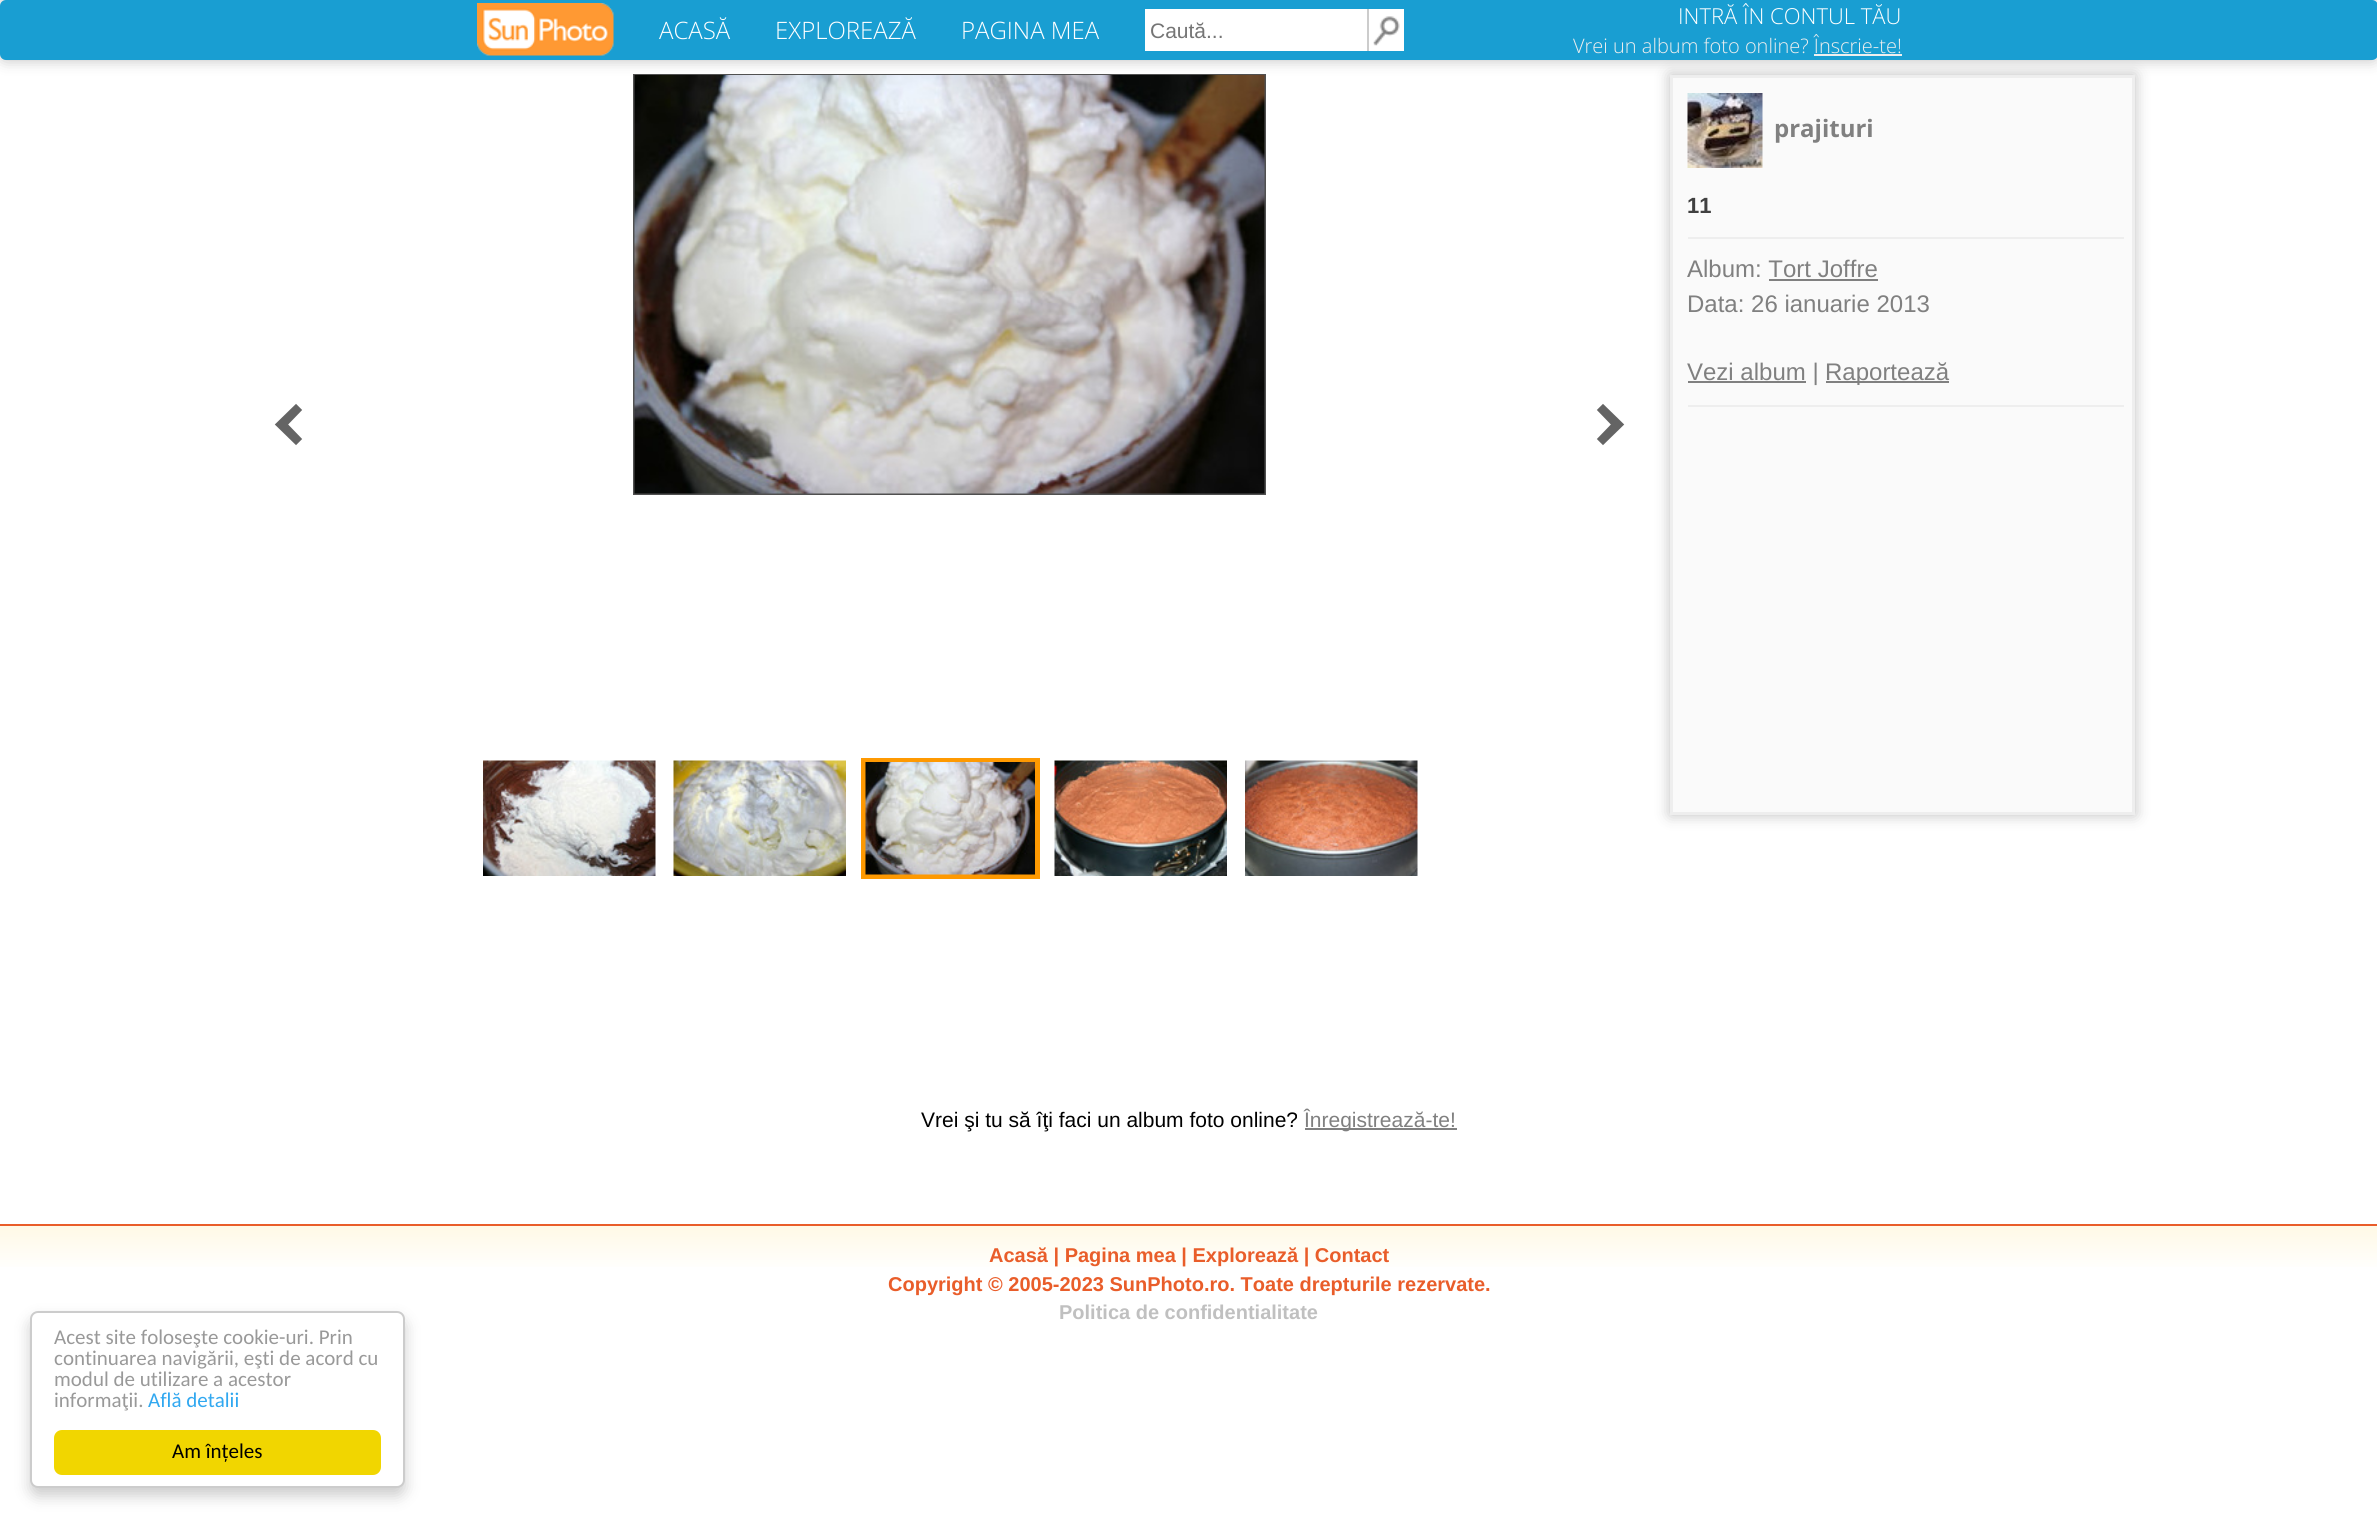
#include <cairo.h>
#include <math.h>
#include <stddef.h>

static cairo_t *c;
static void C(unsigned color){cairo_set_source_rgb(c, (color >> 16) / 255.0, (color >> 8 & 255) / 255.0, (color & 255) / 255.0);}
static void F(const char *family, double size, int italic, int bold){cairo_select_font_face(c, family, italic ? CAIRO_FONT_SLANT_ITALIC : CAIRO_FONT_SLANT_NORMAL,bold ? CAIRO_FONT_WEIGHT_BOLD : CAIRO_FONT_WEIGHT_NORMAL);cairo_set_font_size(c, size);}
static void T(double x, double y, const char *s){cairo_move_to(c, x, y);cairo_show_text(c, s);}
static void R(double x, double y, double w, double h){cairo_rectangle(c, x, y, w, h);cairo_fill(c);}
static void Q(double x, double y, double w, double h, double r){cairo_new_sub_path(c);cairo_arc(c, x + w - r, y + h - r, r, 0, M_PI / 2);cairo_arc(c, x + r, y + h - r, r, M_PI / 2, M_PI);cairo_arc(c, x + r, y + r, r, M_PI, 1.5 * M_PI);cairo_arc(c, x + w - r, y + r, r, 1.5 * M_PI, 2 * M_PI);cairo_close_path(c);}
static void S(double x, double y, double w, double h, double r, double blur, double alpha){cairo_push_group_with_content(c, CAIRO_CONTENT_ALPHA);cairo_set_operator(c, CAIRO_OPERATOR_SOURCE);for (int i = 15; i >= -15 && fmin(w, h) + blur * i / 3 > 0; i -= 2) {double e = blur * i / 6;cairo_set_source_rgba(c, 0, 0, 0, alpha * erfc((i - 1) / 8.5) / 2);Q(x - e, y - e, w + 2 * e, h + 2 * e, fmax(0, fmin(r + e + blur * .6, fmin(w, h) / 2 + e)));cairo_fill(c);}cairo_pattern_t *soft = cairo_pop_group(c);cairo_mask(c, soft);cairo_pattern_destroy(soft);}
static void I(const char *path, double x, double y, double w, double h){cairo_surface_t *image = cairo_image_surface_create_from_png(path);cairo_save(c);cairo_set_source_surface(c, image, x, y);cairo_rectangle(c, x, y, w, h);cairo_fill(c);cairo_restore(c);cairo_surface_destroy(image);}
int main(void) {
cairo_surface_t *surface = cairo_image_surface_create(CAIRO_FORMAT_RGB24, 2377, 1518);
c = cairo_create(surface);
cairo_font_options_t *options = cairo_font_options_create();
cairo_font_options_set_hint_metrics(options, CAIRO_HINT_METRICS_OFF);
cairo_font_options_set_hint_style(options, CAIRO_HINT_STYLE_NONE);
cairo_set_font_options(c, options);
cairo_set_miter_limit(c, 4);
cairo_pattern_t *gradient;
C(0xffffff);
cairo_paint(c);
cairo_rectangle(c,634,75,631,419);
C(0x505050);
cairo_stroke(c);
I("3.png",634,75,631,419);
C(0x000000);
S(1670,75,465,740,0,7.5,.25);
C(0xfafafa);
cairo_rectangle(c,1671.5,76.5,462,737);
cairo_fill_preserve(c);
C(0xeeeeee);
cairo_set_line_width(c,3);
cairo_stroke(c);
C(0x000000);
S(0,0,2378,60,6,7.5,.25);
C(0x199ed2);
Q(0,0,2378,60,6);
cairo_fill(c);
I("1.png",477,3,137,53);
F("Open Sans Light",24,0,0);
C(0xffffff);
T(659,39,"ACASĂ");
T(775,39,"EXPLOREAZĂ");
T(961,39,"PAGINA MEA");
R(1145,9,222,42);
F("Liberation Sans",21,0,0);
C(0x757575);
T(1150,38,"Caută...");
C(0xffffff);
R(1369,9,35,42);
C(0xcccccc);
R(1367,9,2,42);
I("2.png",1373,16,27,30);
F("Open Sans Light",22,0,0);
C(0xffffff);
T(1678,24,"INTRĂ ÎN CONTUL TĂU");
F("Open Sans Light",20,0,0);
C(0xeeeeee);
T(1573,53,"Vrei un album foto online? Înscrie-te!");
R(1814,54,88,2);
C(0x646464);
cairo_new_path(c);
cairo_move_to(c,300,410);
cairo_line_to(c,296,406);
cairo_line_to(c,277,424.5);
cairo_line_to(c,296,443);
cairo_line_to(c,300,439);
cairo_line_to(c,286,424.5);
cairo_close_path(c);
cairo_fill_preserve(c);
cairo_set_line_width(c,3.1);
cairo_stroke(c);
cairo_new_path(c);
cairo_move_to(c,1603,406);
cairo_line_to(c,1599,410);
cairo_line_to(c,1613,424.5);
cairo_line_to(c,1599,439);
cairo_line_to(c,1603,443);
cairo_line_to(c,1622,424.5);
cairo_close_path(c);
cairo_fill_preserve(c);
cairo_stroke(c);
I("4.png",1687,93,76,75);
F("Open Sans",24,0,1);
C(0x808080);
T(1774,137,"prajituri");
F("Liberation Sans",22,0,1);
C(0x404040);
T(1687,213,"11");
C(0xeeeeee);
R(1688,237,436,2);
F("Liberation Sans",24,0,0);
C(0x808080);
T(1687,277,"Album: Tort Joffre");
R(1769,279,109,2);
T(1687,312,"Data: 26 ianuarie 2013");
R(1688,381,118,2);
T(1687,380,"Vezi album |");
R(1826,381,123,2);
T(1825,380,"Raportează");
C(0xeeeeee);
R(1688,405,436,2);
I("5.png",483,760,173,116);
I("6.png",673,760,173,116);
cairo_rectangle(c,863.5,760.5,174,116);
C(0xfe9901);
cairo_set_line_width(c,5);
cairo_stroke(c);
I("7.png",865,762,170,113);
I("8.png",1054,760,173,116);
I("9.png",1245,760,173,116);
F("Liberation Sans",21,0,0);
C(0x000000);
T(921,1127,"Vrei şi tu să îţi faci un album foto online?");
C(0x808080);
R(1305,1128,152,2);
T(1304,1127,"Înregistrează-te!");
gradient = cairo_pattern_create_linear(1189,1225,1189,1272);
cairo_pattern_add_color_stop_rgba(gradient,0,1,0.976,0.898,1);
cairo_pattern_add_color_stop_rgba(gradient,1,1,1,1,1);
cairo_set_source(c,gradient);
cairo_pattern_destroy(gradient);
R(0,1226,2377,41);
C(0xe95d2a);
R(0,1224,2377,2);
F("Liberation Sans",20,0,1);
T(989,1262,"Acasă | Pagina mea | Explorează | Contact");
T(888,1291,"Copyright © 2005-2023 SunPhoto.ro. Toate drepturile rezervate.");
C(0xc0c0c0);
T(1059,1319,"Politica de confidentialitate");
C(0x000000);
S(30,1319,375,177,8,7.5,.2);
C(0xffffff);
Q(31,1312,373,175,7);
cairo_fill_preserve(c);
C(0xcccccc);
cairo_set_line_width(c,2);
cairo_stroke(c);
F("Carlito",21,0,0);
C(0x999999);
T(54,1344,"Acest site foloseşte cookie-uri. Prin");
T(54,1365,"continuarea navigării, eşti de acord cu");
T(54,1386,"modul de utilizare a acestor");
T(54,1407,"informaţii.");
C(0x31a8f0);
T(148,1407,"Află detalii");
C(0xf1d600);
Q(54,1430,327,45,8);
cairo_fill(c);
C(0x000000);
T(172,1458,"Am înțeles");
cairo_surface_write_to_png(surface, "o.png");
cairo_font_options_destroy(options);
cairo_destroy(c);
cairo_surface_destroy(surface);
return 0;
}
